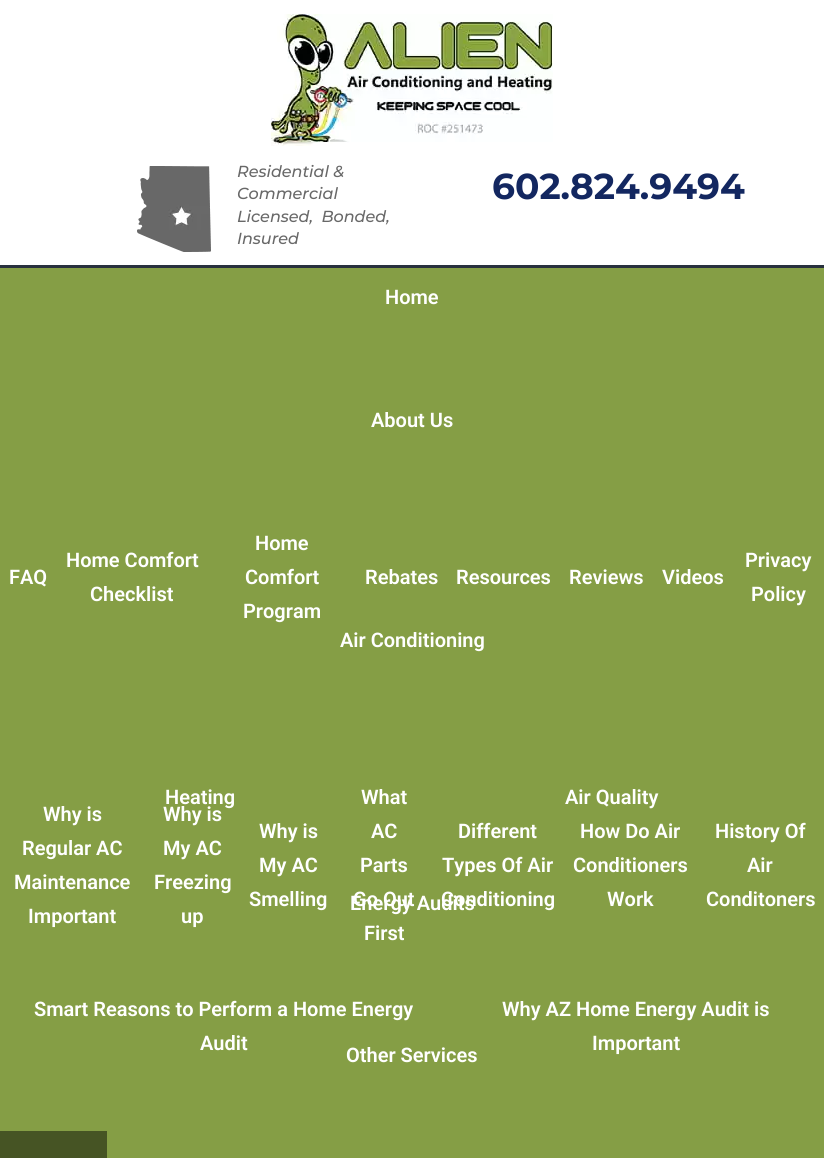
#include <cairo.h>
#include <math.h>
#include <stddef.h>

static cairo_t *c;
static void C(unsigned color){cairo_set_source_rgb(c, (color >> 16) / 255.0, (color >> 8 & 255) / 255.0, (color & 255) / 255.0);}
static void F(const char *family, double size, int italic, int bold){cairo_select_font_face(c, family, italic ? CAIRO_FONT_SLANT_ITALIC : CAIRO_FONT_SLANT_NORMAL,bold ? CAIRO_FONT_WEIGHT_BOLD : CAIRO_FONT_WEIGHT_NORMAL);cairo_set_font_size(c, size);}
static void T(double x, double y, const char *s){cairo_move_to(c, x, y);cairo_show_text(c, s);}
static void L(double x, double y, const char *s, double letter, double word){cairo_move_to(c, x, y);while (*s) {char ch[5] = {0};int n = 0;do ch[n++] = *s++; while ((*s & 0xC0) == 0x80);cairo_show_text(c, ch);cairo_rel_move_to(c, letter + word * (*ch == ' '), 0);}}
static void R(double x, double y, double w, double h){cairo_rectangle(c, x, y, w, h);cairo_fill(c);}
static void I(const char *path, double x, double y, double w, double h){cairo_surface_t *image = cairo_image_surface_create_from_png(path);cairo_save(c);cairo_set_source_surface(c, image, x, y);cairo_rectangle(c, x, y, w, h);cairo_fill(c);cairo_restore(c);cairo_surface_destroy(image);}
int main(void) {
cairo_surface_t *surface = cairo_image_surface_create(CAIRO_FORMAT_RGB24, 824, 1158);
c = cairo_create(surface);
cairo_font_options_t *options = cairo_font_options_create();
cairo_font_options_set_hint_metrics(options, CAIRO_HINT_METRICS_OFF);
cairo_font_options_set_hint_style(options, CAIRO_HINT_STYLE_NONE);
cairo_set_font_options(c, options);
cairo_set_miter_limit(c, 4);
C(0xffffff);
cairo_paint(c);
C(0x28303d);
R(0,265,824,3);
I("1.png",271,14,282,132);
I("2.png",137,166,74,86);
F("Montserrat Medium",16,1,0);
C(0x686868);
T(237,177,"Residential &");
T(237,199,"Commercial");
L(237,222,"Licensed, Bonded,",0,4);
T(237,244,"Insured");
F("Montserrat",36,0,1);
C(0x132760);
T(492,199,"602.824.9494");
C(0x859e45);
R(0,268,824,890);
F("Roboto SemiBold",20,0,0);
C(0xffffff);
T(385,304,"Home");
T(371,427,"About Us");
T(9,584,"FAQ");
T(66,567,"Home Comfort");
T(90,601,"Checklist");
T(255,550,"Home");
T(245,584,"Comfort");
T(243,618,"Program");
T(365,584,"Rebates");
T(456,584,"Resources");
T(569,584,"Reviews");
T(662,584,"Videos");
T(745,567,"Privacy");
T(751,601,"Policy");
T(340,647,"Air Conditioning");
T(43,821,"Why is");
T(22,855,"Regular AC");
T(14,889,"Maintenance");
T(28,923,"Important");
T(163,821,"Why is");
T(163,855,"My AC");
T(154,889,"Freezing");
T(181,923,"up");
T(259,838,"Why is");
T(259,872,"My AC");
T(249,906,"Smelling");
T(361,804,"What");
T(371,838,"AC");
T(360,872,"Parts");
T(353,906,"Go Out");
T(364,940,"First");
T(458,838,"Different");
T(442,872,"Types Of Air");
T(441,906,"Conditioning");
T(580,838,"How Do Air");
T(573,872,"Conditioners");
T(607,906,"Work");
T(715,838,"History Of");
T(747,872,"Air");
T(706,906,"Conditoners");
T(165,804,"Heating");
T(565,804,"Air Quality");
T(350,910,"Energy Audits");
T(34,1016,"Smart Reasons to Perform a Home Energy");
T(200,1050,"Audit");
T(502,1016,"Why AZ Home Energy Audit is");
T(592,1050,"Important");
T(346,1062,"Other Services");
C(0x465424);
R(0,1131,107,27);
cairo_surface_write_to_png(surface, "o.png");
cairo_font_options_destroy(options);
cairo_destroy(c);
cairo_surface_destroy(surface);
return 0;
}
